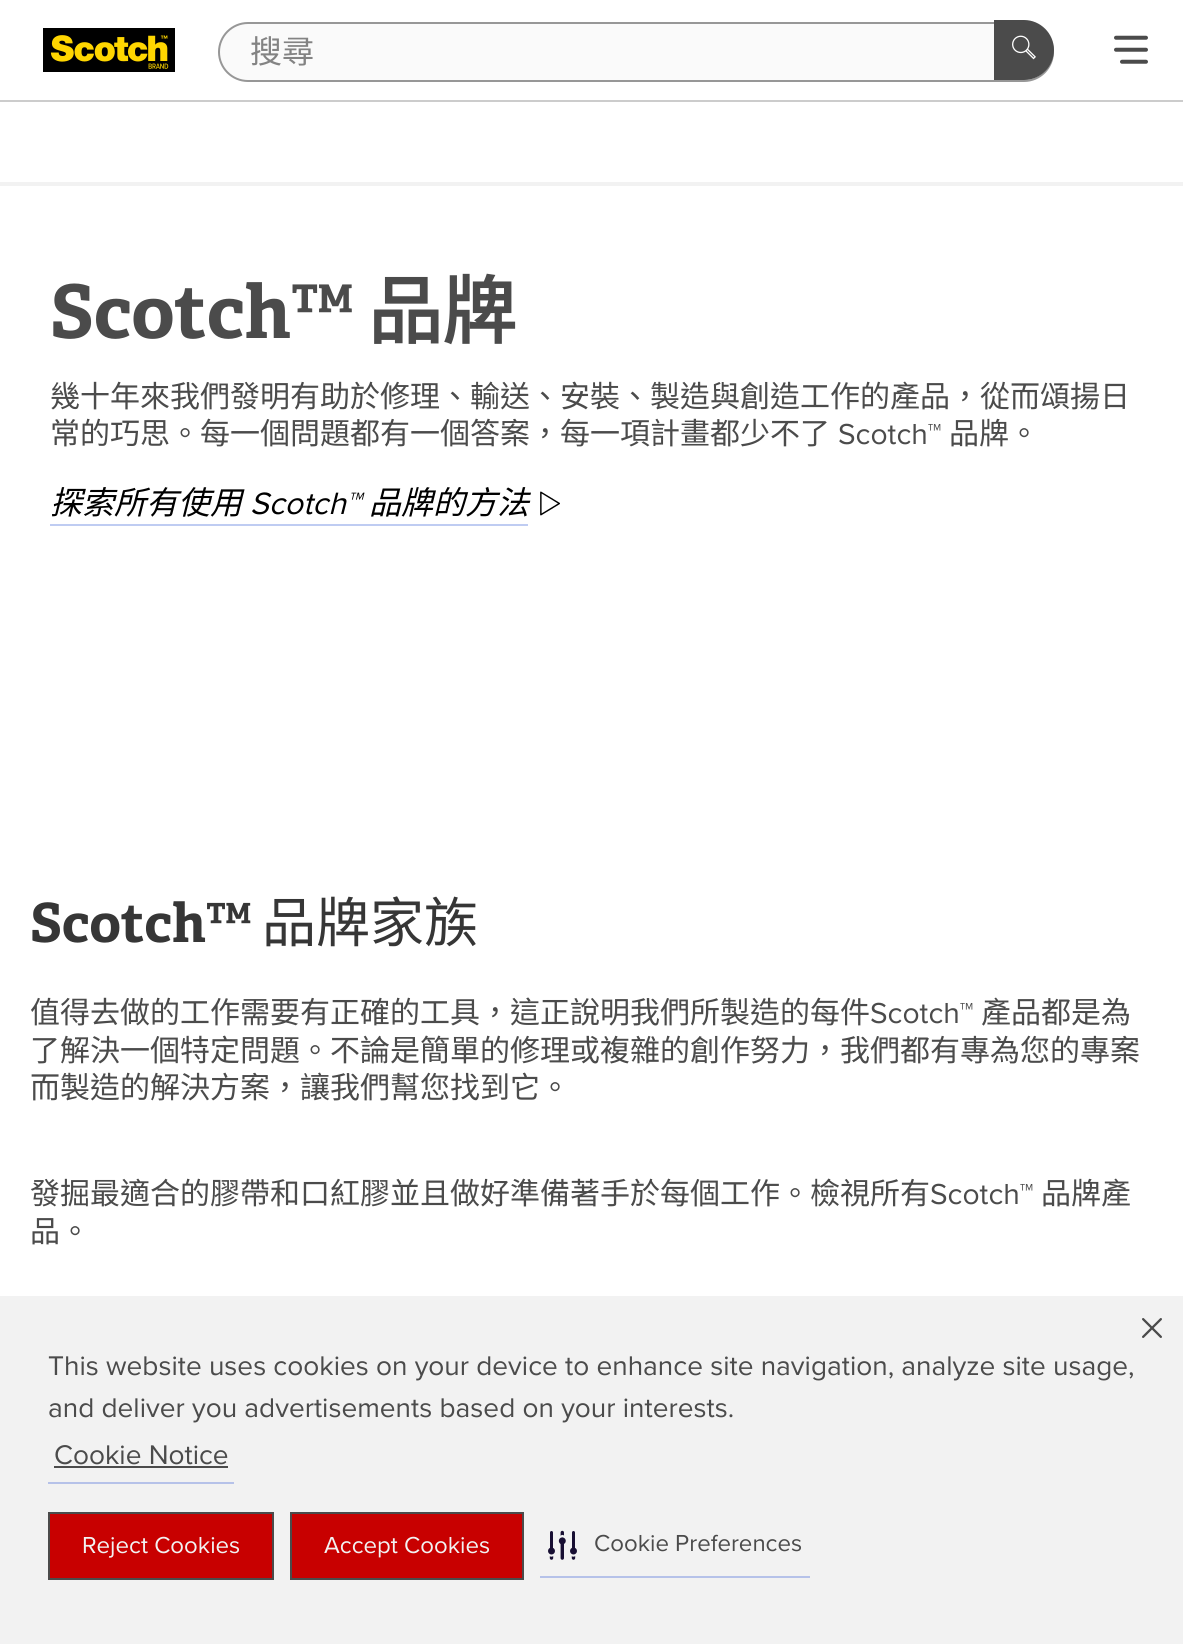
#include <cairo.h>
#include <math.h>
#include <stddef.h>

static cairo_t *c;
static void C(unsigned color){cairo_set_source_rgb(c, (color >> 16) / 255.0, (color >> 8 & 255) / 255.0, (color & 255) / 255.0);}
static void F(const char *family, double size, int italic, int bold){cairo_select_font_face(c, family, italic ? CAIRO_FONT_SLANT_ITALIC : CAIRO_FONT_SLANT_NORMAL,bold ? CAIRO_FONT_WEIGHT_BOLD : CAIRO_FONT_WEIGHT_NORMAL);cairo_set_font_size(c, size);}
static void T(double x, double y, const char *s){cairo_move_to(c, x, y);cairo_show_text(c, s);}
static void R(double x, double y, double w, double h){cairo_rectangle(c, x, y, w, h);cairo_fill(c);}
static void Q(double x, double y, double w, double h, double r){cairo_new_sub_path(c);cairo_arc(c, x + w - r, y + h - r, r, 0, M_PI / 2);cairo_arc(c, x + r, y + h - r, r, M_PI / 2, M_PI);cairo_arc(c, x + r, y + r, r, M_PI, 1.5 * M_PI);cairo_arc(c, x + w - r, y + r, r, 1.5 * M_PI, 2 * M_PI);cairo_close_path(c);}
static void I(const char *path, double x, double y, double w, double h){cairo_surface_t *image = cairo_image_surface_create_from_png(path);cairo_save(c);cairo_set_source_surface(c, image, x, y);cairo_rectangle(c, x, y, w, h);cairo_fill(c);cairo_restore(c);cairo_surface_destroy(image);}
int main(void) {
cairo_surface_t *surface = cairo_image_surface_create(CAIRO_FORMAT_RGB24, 1183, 1644);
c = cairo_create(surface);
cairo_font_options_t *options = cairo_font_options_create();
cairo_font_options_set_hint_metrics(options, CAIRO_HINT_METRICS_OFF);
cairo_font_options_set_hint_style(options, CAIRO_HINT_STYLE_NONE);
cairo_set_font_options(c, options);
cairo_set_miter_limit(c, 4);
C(0xffffff);
cairo_paint(c);
C(0xf2f2f2);
R(0,182,1183,4);
I("1.png",43,28,132,44);
C(0xfafafa);
Q(219,23,834,58,29);
cairo_fill_preserve(c);
C(0x979797);
cairo_stroke(c);
F("Noto Sans CJK TC",32,0,0);
C(0x838383);
T(250,63,"搜尋");
C(0x4b4b4b);
cairo_new_path(c);
cairo_move_to(c,994,20);
cairo_line_to(c,1024,20);
cairo_curve_to(c,1040.5,20,1054,33.5,1054,50);
cairo_curve_to(c,1054,66.5,1040.5,80,1024,80);
cairo_line_to(c,994,80);
cairo_close_path(c);
cairo_fill(c);
I("2.png",1012,35,24,25);
I("3.png",1114,35,34,29);
C(0xcccccc);
R(0,100,1183,2);
F("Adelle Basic",74,0,1);
C(0x4b4b4b);
T(50,338,"Scotch™");
F("Noto Sans CJK TC",74,0,1);
T(368,338,"品牌");
F("Noto Sans CJK TC",30,0,0);
T(50,407,"幾十年來我們發明有助於修理、輸送、安裝、製造與創造工作的產品，從而頌揚日");
T(50,444,"常的巧思。每一個問題都有一個答案，每一項計畫都少不了");
F("Proxima Nova",30,0,0);
T(838,444,"Scotch™");
F("Noto Sans CJK TC",30,0,0);
T(949,444,"品牌。");
F("Noto Sans CJK TC",32,1,0);
C(0x000000);
T(50,514,"探索所有使用");
F("Proxima Nova",32,1,0);
T(250,514,"Scotch™");
C(0xbfccf2);
R(50,524,478,2);
F("Noto Sans CJK TC",32,1,0);
C(0x000000);
T(369,514,"品牌的方法");
I("4.png",540,491,20,25);
F("Adelle Basic",54,0,1);
C(0x363636);
T(30,942,"Scotch™");
F("Noto Sans CJK TC",54,0,0);
T(262,942,"品牌家族");
F("Noto Sans CJK TC",30,0,0);
C(0x4b4b4b);
T(30,1023,"值得去做的工作需要有正確的工具，這正說明我們所製造的每件");
F("Proxima Nova",30,0,0);
T(870,1023,"Scotch™");
F("Noto Sans CJK TC",30,0,0);
T(981,1023,"產品都是為");
T(30,1061,"了解決一個特定問題。不論是簡單的修理或複雜的創作努力，我們都有專為您的專案");
T(30,1098,"而製造的解決方案，讓我們幫您找到它。");
T(30,1204,"發掘最適合的膠帶和口紅膠並且做好準備著手於每個工作。檢視所有");
F("Proxima Nova",30,0,0);
T(930,1204,"Scotch™");
F("Noto Sans CJK TC",30,0,0);
T(1041,1204,"品牌產");
T(30,1242,"品。");
C(0xf2f2f2);
R(0,1296,1183,348);
F("Proxima Nova",28,0,0);
C(0x4b4b4b);
T(48,1375,"This website uses cookies on your device to enhance site navigation, analyze site usage,");
T(48,1417,"and deliver you advertisements based on your interests.");
C(0xb6c2e9);
R(48,1482,186,2);
C(0x4b4b4b);
T(54,1464,"Cookie Notice");
R(54,1466,174,2);
I("5.png",1142,1318,20,20);
C(0xc80000);
cairo_rectangle(c,49,1513,224,66);
cairo_fill_preserve(c);
C(0x4b4b4b);
cairo_stroke(c);
F("Proxima Nova",24,0,0);
C(0xf2f2f2);
T(82,1553,"Reject Cookies");
C(0xc80000);
cairo_rectangle(c,291,1513,232,66);
cairo_fill_preserve(c);
C(0x4b4b4b);
cairo_stroke(c);
C(0xf2f2f2);
T(324,1553,"Accept Cookies");
C(0xb6c2e9);
R(540,1576,270,2);
I("6.png",548,1530,29,30);
C(0x4b4b4b);
T(594,1551,"Cookie Preferences");
cairo_surface_write_to_png(surface, "o.png");
cairo_font_options_destroy(options);
cairo_destroy(c);
cairo_surface_destroy(surface);
return 0;
}
